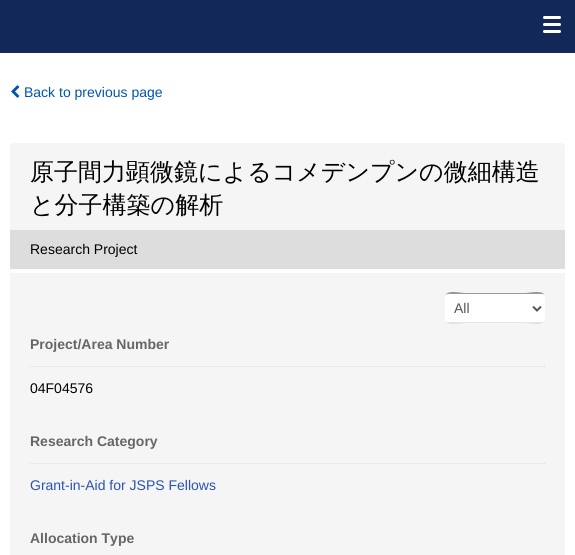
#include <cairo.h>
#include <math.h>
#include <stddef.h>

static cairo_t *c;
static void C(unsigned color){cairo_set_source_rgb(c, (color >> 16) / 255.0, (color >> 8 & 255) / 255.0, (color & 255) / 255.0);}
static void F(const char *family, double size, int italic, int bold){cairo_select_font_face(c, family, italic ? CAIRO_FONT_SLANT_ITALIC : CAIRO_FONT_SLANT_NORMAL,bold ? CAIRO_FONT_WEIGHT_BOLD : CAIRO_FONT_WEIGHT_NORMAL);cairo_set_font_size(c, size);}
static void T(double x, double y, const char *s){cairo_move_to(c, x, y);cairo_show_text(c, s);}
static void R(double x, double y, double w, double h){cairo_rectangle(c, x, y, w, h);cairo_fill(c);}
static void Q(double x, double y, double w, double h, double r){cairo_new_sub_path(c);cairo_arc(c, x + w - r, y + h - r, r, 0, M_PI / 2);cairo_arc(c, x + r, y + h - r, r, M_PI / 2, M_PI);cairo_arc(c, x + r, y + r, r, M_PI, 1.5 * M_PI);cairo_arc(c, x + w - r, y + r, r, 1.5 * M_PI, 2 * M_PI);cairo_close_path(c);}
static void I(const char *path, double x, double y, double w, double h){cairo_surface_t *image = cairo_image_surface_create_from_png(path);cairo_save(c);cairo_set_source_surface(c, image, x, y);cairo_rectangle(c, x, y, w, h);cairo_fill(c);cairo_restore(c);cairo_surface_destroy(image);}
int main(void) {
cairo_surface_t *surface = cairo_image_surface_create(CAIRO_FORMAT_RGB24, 575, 555);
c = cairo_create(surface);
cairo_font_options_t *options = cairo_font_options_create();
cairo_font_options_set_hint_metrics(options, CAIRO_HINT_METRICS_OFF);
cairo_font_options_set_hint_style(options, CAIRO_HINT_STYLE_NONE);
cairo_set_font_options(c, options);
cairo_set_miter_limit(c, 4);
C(0xffffff);
cairo_paint(c);
C(0x122858);
R(0,0,575,53);
I("1.png",543,16,18,17);
I("2.png",11,85,9,13);
F("Liberation Sans",14,0,0);
C(0x0055aa);
T(24,97,"Back to previous page");
C(0xf5f5f5);
Q(10,143,555,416,4);
cairo_fill(c);
F("WenQuanYi Zen Hei Medium",24,0,0);
C(0x000000);
T(30,180,"原子間力顕微鏡によるコメデンプンの微細構造");
T(30,213,"と分子構築の解析");
C(0xdddddd);
R(10,230,555,39);
F("Liberation Sans",14,0,0);
C(0x000000);
T(30,254,"Research Project");
C(0xffffff);
R(10,269,555,4);
Q(445,293,100,30,3);
cairo_fill(c);
cairo_set_source_rgba(c,0,0,0,0.1);
cairo_new_path(c);
cairo_move_to(c,445,319);
cairo_curve_to(c,445,327,461,323,464,323);
cairo_line_to(c,526,323);
cairo_curve_to(c,529,323,545,327,545,319);
cairo_curve_to(c,545,321,544,322,542,322);
cairo_line_to(c,448,322);
cairo_curve_to(c,446,322,445,321,445,319);
cairo_close_path(c);
cairo_fill(c);
cairo_set_source_rgba(c,0,0,0,0.4);
cairo_new_path(c);
cairo_move_to(c,448,294);
cairo_line_to(c,542,294);
cairo_curve_to(c,544,294,545,295,545,297);
cairo_curve_to(c,545,289,529,293,526,293);
cairo_line_to(c,464,293);
cairo_curve_to(c,461,293,445,289,445,297);
cairo_curve_to(c,445,295,446,294,448,294);
cairo_close_path(c);
cairo_fill(c);
cairo_new_path(c);
cairo_move_to(c,533,306.5);
cairo_line_to(c,537,310.5);
cairo_line_to(c,541,306.5);
C(0x555555);
cairo_stroke(c);
T(454,313,"All");
cairo_new_path(c);
cairo_move_to(c,30,366.5);
cairo_line_to(c,545,366.5);
C(0xdddddd);
cairo_set_line_width(c,1);
cairo_set_dash(c,(double[]){1,1},2,0);
cairo_stroke(c);
F("Liberation Sans",14,0,1);
C(0x666666);
T(30,349,"Project/Area Number");
F("Liberation Sans",14,0,0);
C(0x000000);
T(30,393,"04F04576");
cairo_new_path(c);
cairo_move_to(c,30,463.5);
cairo_line_to(c,545,463.5);
C(0xdddddd);
cairo_stroke(c);
F("Liberation Sans",14,0,1);
C(0x666666);
T(30,446,"Research Category");
F("Liberation Sans",14,0,0);
C(0x2954af);
T(30,490,"Grant-in-Aid for JSPS Fellows");
F("Liberation Sans",14,0,1);
C(0x666666);
T(30,543,"Allocation Type");
cairo_surface_write_to_png(surface, "o.png");
cairo_font_options_destroy(options);
cairo_destroy(c);
cairo_surface_destroy(surface);
return 0;
}
